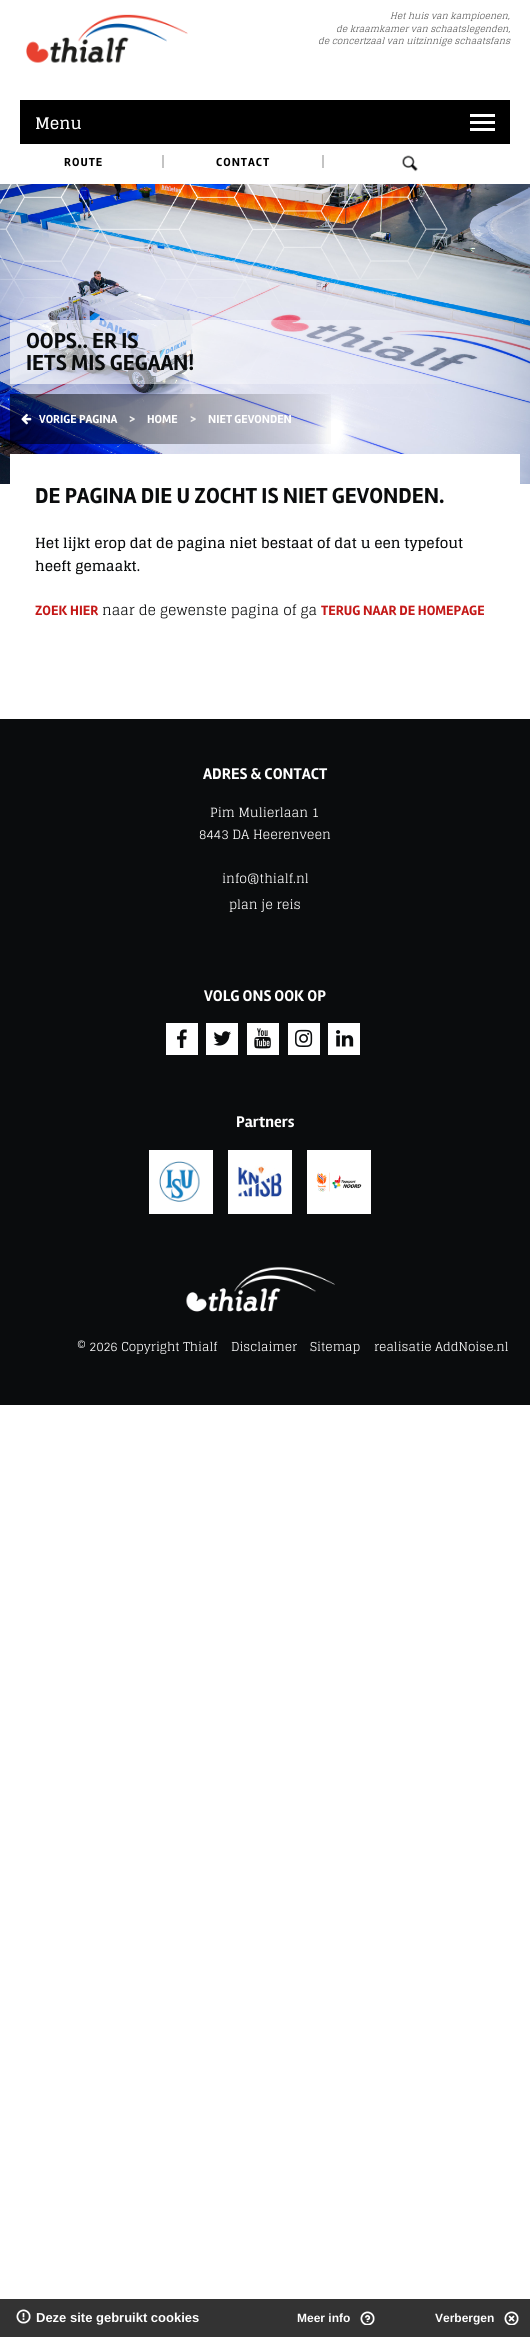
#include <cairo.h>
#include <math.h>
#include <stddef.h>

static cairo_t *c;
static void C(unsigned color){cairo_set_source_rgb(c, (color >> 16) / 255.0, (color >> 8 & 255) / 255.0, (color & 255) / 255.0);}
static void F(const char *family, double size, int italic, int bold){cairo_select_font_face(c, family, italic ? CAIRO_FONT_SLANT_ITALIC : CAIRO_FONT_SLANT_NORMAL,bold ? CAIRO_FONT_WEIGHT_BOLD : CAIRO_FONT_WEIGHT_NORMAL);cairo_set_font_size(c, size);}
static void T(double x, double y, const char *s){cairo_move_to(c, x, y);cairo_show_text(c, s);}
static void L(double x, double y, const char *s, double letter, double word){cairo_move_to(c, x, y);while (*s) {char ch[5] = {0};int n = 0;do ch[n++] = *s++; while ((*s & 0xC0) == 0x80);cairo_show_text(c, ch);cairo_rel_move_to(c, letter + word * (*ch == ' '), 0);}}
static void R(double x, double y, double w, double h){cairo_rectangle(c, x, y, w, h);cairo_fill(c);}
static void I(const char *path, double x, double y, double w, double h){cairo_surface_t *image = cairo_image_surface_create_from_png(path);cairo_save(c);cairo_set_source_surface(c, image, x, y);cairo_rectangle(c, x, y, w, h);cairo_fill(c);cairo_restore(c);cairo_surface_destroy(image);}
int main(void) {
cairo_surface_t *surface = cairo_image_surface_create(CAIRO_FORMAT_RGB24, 530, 2337);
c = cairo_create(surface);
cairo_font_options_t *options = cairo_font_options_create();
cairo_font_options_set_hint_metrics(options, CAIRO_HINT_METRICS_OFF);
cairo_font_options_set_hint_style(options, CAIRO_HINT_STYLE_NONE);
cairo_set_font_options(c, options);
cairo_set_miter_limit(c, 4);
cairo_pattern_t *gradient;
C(0xffffff);
cairo_paint(c);
I("1.png",26,14,162,49);
F("Glegoo",9,1,0);
C(0x585858);
T(390,19,"Het huis van kampioenen,");
T(336,32,"de kraamkamer van schaatslegenden,");
T(318,44,"de concertzaal van uitzinnige schaatsfans");
C(0x000000);
R(20,100,490,44);
F("Glegoo",16,0,1);
C(0xffffff);
T(35,129,"Menu");
R(470,121,25,3);
R(470,114,25,3);
R(470,128,25,3);
F("Rambla",12,0,1);
C(0x000000);
L(64,166,"ROUTE",1,0);
C(0xc4c4c4);
R(162,155,2,13);
C(0x000000);
L(216,166,"CONTACT",1,0);
C(0xc4c4c4);
R(322,155,2,13);
I("2.png",402,155,16,17);
I("3.png",0,184,530,300);
I("4.png",0,184,448,219);
gradient = cairo_pattern_create_linear(518,397,12,307);
cairo_pattern_add_color_stop_rgba(gradient,0,1,1,1,0);
cairo_pattern_add_color_stop_rgba(gradient,1,1,1,1,.7);
cairo_set_source(c,gradient);
cairo_pattern_destroy(gradient);
R(10,320,506,64);
F("Rambla",22.4,0,1);
C(0x0a0c0d);
T(26,348,"OOPS.. ER IS");
T(26,370,"IETS MIS GEGAAN!");
gradient = cairo_pattern_create_linear(10,419,343,419);
cairo_pattern_add_color_stop_rgba(gradient,0,0,0,0,.6);
cairo_pattern_add_color_stop_rgba(gradient,1,0,0,0,0);
cairo_set_source(c,gradient);
cairo_pattern_destroy(gradient);
R(10,394,321,50);
I("5.png",21,414,11,11);
F("Rambla",12,0,1);
C(0xffffff);
T(39,423,"VORIGE PAGINA");
F("Rambla",14,0,1);
C(0xeeeeee);
T(129,423,">");
F("Rambla",12,0,1);
C(0xffffff);
T(147,423,"HOME");
F("Rambla",14,0,1);
C(0xeeeeee);
T(190,423,">");
F("Rambla",12,0,1);
C(0xffffff);
T(208,423,"NIET GEVONDEN");
R(10,454,510,30);
F("Rambla",22.4,0,1);
C(0x0a0c0d);
T(35,503,"DE PAGINA DIE U ZOCHT IS NIET GEVONDEN.");
F("Glegoo",14,0,1);
T(35,548,"Het lijkt erop dat de pagina niet bestaat of dat u een typefout");
T(35,571,"heeft gemaakt.");
F("Rambla",14,0,1);
C(0xc41817);
T(35,615,"ZOEK HIER");
F("Glegoo",14,0,0);
C(0x0a0c0d);
T(102,615,"naar de gewenste pagina of ga");
F("Rambla",14,0,1);
C(0xc41817);
T(321,615,"TERUG NAAR DE HOMEPAGE");
C(0x0a0c0d);
R(0,719,530,686);
F("Rambla",16,0,1);
C(0xffffff);
T(203,779,"ADRES & CONTACT");
F("Glegoo",12.75,0,0);
T(210,817,"Pim Mulierlaan 1");
T(199,839,"8443 DA Heerenveen");
T(222,883,"info@thialf.nl");
T(229,909,"plan je reis");
F("Rambla",16,0,1);
T(204,1001,"VOLG ONS OOK OP");
R(166,1023,32,32);
I("6.png",177,1029,10,19);
R(206,1023,32,32);
I("7.png",213,1031,18,15);
R(247,1023,32,32);
I("8.png",254,1028,17,21);
R(288,1023,32,32);
I("9.png",295,1029,18,18);
R(328,1023,32,32);
I("10.png",336,1030,18,17);
T(236,1127,"Partners");
R(149,1150,64,64);
I("11.png",159,1161,41,41);
R(228,1150,64,64);
I("12.png",238,1166,44,31);
R(307,1150,64,64);
I("13.png",316,1172,46,20);
I("14.png",186,1266,149,46);
F("Glegoo",12.2,0,0);
T(77,1351,"© 2026 Copyright Thialf");
T(231,1351,"Disclaimer");
T(310,1351,"Sitemap");
T(374,1351,"realisatie AddNoise.nl");
C(0x333333);
R(0,2299,530,38);
I("15.png",16,2309,15,15);
F("Liberation Sans",13,0,1);
C(0xffffff);
T(36,2322,"Deze site gebruikt cookies");
F("Liberation Sans",12,0,1);
T(297,2322,"Meer info");
I("16.png",360,2311,15,14);
T(435,2322,"Verbergen");
I("17.png",504,2311,15,14);
cairo_surface_write_to_png(surface, "o.png");
cairo_font_options_destroy(options);
cairo_destroy(c);
cairo_surface_destroy(surface);
return 0;
}
